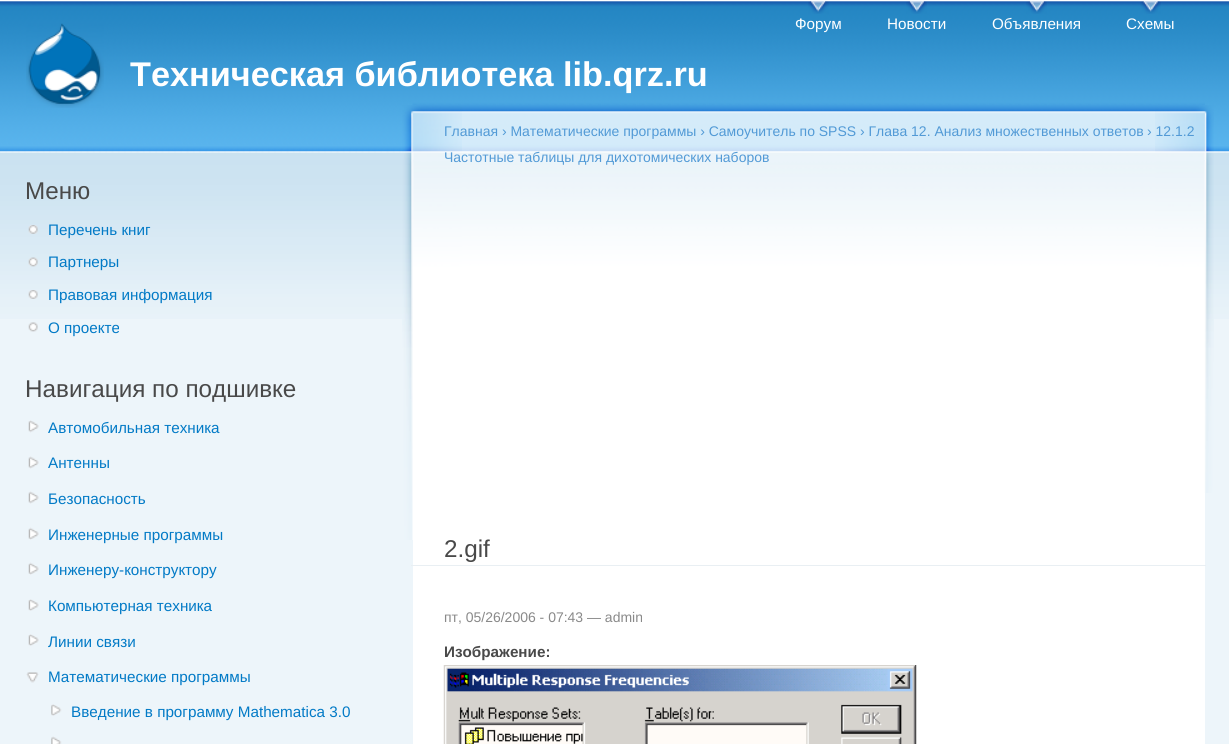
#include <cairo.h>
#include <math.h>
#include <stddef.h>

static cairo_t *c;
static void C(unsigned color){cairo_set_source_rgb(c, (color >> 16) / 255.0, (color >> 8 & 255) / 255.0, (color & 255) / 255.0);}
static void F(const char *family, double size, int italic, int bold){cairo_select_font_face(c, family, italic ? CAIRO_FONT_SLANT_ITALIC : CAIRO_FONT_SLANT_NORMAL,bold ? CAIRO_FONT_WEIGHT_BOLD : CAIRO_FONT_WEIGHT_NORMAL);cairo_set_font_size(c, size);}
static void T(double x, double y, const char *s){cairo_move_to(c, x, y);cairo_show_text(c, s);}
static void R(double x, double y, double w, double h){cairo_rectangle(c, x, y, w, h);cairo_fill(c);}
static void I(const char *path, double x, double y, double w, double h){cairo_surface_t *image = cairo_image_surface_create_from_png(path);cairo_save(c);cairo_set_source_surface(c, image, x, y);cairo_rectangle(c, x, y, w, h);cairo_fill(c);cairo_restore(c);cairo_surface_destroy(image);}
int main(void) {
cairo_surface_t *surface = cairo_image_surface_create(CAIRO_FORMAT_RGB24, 1229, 744);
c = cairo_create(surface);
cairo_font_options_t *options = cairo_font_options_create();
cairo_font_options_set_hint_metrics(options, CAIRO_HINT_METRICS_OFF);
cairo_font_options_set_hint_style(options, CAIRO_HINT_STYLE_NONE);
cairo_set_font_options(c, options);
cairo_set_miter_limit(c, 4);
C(0xedf5fa);
cairo_paint(c);
I("1.png",0,0,1229,319);
I("2.png",808,1,21,13);
F("Liberation Sans",15.25,0,0);
C(0xffffff);
T(795,29,"Форум");
I("3.png",906,1,21,13);
T(887,29,"Новости");
I("4.png",1026,1,21,13);
T(992,29,"Объявления");
I("5.png",1140,1,21,13);
T(1126,29,"Схемы");
I("6.png",26,23,78,85);
F("Liberation Sans",34.25,0,1);
T(130,86,"Техническая библиотека lib.qrz.ru");
F("Liberation Sans",24.25,0,0);
C(0x494949);
T(25,199,"Меню");
I("7.png",28,225,10,9);
F("Liberation Sans",15.25,0,0);
C(0x027ac6);
T(48,235,"Перечень книг");
I("8.png",28,257,10,10);
T(48,267,"Партнеры");
I("9.png",28,290,10,9);
T(48,300,"Правовая информация");
I("10.png",28,322,10,10);
T(48,333,"О проекте");
F("Liberation Sans",24.25,0,0);
C(0x494949);
T(25,397,"Навигация по подшивке");
I("11.png",28,420,11,13);
F("Liberation Sans",15.25,0,0);
C(0x027ac6);
T(48,433,"Автомобильная техника");
I("12.png",28,456,11,13);
T(48,468,"Антенны");
I("12.png",28,491,11,13);
T(48,504,"Безопасность");
I("13.png",28,527,11,13);
T(48,540,"Инженерные программы");
I("13.png",28,562,11,13);
T(48,575,"Инженеру-конструктору");
I("14.png",28,599,11,12);
T(48,611,"Компьютерная техника");
I("14.png",28,634,11,12);
T(48,647,"Линии связи");
I("15.png",26,672,13,11);
T(48,682,"Математические программы");
I("16.png",51,704,11,12);
T(71,717,"Введение в программу Mathematica 3.0");
I("17.png",51,736,11,8);
C(0xffffff);
R(413,350,792,394);
I("18.png",412,100,793,250);
I("19.png",1155,105,59,388);
I("20.png",402,105,60,435);
F("Liberation Sans",13.98,0,0);
C(0x529ad6);
T(444,136,"Главная › Математические программы › Самоучитель по SPSS › Глава 12. Анализ множественных ответов");
T(1147,136,"› 12.1.2");
T(444,162,"Частотные таблицы для дихотомических наборов");
C(0xe9eff3);
R(411,565,795,1);
F("Liberation Sans",24.25,0,0);
C(0x494949);
T(444,557,"2.gif");
F("Liberation Sans",13.98,0,0);
C(0x898989);
T(444,622,"пт, 05/26/2006 - 07:43 — admin");
F("Liberation Sans",15.25,0,1);
C(0x494949);
T(444,657,"Изображение:");
I("21.png",443,665,474,79);
cairo_surface_write_to_png(surface, "o.png");
cairo_font_options_destroy(options);
cairo_destroy(c);
cairo_surface_destroy(surface);
return 0;
}
